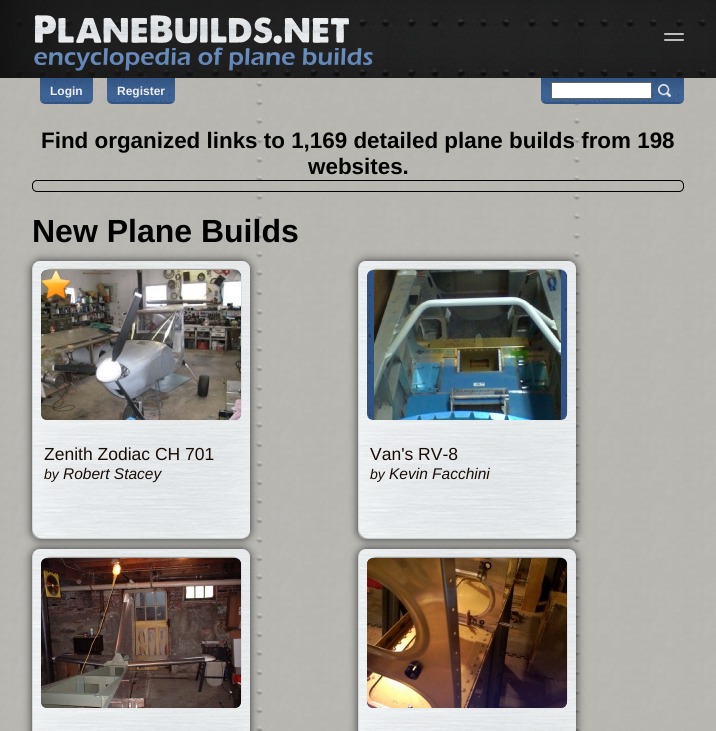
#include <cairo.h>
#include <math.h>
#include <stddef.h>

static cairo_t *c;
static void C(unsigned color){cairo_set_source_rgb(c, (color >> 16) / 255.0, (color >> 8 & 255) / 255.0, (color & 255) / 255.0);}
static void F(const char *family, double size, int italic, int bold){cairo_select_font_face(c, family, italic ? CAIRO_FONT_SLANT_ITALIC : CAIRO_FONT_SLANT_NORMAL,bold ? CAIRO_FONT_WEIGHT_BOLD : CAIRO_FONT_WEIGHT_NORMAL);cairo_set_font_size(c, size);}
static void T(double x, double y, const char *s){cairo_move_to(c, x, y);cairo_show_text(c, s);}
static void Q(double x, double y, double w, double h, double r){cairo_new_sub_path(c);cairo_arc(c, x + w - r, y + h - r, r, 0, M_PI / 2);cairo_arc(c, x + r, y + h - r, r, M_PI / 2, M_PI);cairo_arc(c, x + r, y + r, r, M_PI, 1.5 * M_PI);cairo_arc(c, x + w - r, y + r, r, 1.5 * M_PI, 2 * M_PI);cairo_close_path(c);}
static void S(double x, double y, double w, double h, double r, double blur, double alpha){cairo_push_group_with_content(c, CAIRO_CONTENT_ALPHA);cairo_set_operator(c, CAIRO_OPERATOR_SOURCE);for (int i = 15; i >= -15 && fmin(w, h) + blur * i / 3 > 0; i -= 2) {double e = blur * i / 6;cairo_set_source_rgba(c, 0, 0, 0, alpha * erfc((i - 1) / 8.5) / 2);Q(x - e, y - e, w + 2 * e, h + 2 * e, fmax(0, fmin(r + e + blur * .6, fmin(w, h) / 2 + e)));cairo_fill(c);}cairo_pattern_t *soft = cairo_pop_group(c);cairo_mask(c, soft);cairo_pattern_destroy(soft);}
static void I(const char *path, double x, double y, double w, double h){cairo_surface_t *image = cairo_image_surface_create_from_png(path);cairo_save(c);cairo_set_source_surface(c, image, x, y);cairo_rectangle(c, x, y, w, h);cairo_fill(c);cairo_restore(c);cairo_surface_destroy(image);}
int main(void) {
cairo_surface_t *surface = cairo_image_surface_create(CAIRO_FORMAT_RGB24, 716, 731);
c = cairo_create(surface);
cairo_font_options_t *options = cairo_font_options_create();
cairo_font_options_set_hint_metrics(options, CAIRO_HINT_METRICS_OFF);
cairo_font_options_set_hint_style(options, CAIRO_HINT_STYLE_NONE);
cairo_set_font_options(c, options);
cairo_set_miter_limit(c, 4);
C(0xffffff);
cairo_paint(c);
I("1.png",0,78,716,653);
I("2.png",0,0,716,78);
I("3.png",34,15,339,56);
C(0xbdbdbd);
Q(664,33,20,2,1);
cairo_fill(c);
Q(664,39,20,2,1);
cairo_fill(c);
I("4.png",541,78,143,26);
C(0xffffff);
cairo_rectangle(c,551.5,82.5,100,16);
cairo_fill_preserve(c);
C(0x606262);
cairo_set_line_width(c,1);
cairo_stroke(c);
I("5.png",658,84,13,13);
I("6.png",40,78,53,26);
F("Liberation Sans",12,0,1);
C(0xeceef0);
T(50,95,"Login");
I("7.png",107,78,68,26);
T(117,95,"Register");
F("Liberation Sans",22.4,0,1);
C(0x010101);
T(41,148,"Find organized links to 1,169 detailed plane builds from 198");
T(308,174,"websites.");
Q(32.5,180.5,651,11,4.5);
cairo_stroke(c);
F("Liberation Sans",32,0,1);
T(32,242,"New Plane Builds");
C(0x333333);
S(32,261,218,278,8,4.5,1);
C(0xb7b5aa);
Q(32,261,218,278,8);
cairo_fill(c);
I("8.png",32,261,218,278);
I("9.png",41,270,200,150);
I("10.png",41,270,200,150);
I("11.png",41,270,30,30);
F("Liberation Sans",17.5,0,0);
C(0x1a0c05);
T(44,460,"Zenith Zodiac CH 701");
F("Liberation Sans",14,1,0);
T(44,479,"by");
F("Liberation Sans",15.5,1,0);
T(63,479,"Robert Stacey");
C(0x333333);
S(358,261,218,278,8,4.5,1);
C(0xb7b5aa);
Q(358,261,218,278,8);
cairo_fill(c);
I("12.png",358,261,218,278);
I("9.png",367,270,200,150);
I("13.png",374,270,187,150);
F("Liberation Sans",17.5,0,0);
C(0x1a0c05);
T(370,460,"Van's RV-8");
F("Liberation Sans",14,1,0);
T(370,479,"by");
F("Liberation Sans",15.5,1,0);
T(389,479,"Kevin Facchini");
C(0x333333);
S(32,549,218,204,8,4.5,1);
C(0xb7b5aa);
Q(32,549,218,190,8);
cairo_fill(c);
I("14.png",32,549,218,182);
I("9.png",41,558,200,150);
I("15.png",41,558,200,150);
C(0x333333);
S(358,549,218,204,8,4.5,1);
C(0xb7b5aa);
Q(358,549,218,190,8);
cairo_fill(c);
I("16.png",358,549,218,182);
I("9.png",367,558,200,150);
I("17.png",367,558,200,150);
cairo_surface_write_to_png(surface, "o.png");
cairo_font_options_destroy(options);
cairo_destroy(c);
cairo_surface_destroy(surface);
return 0;
}
